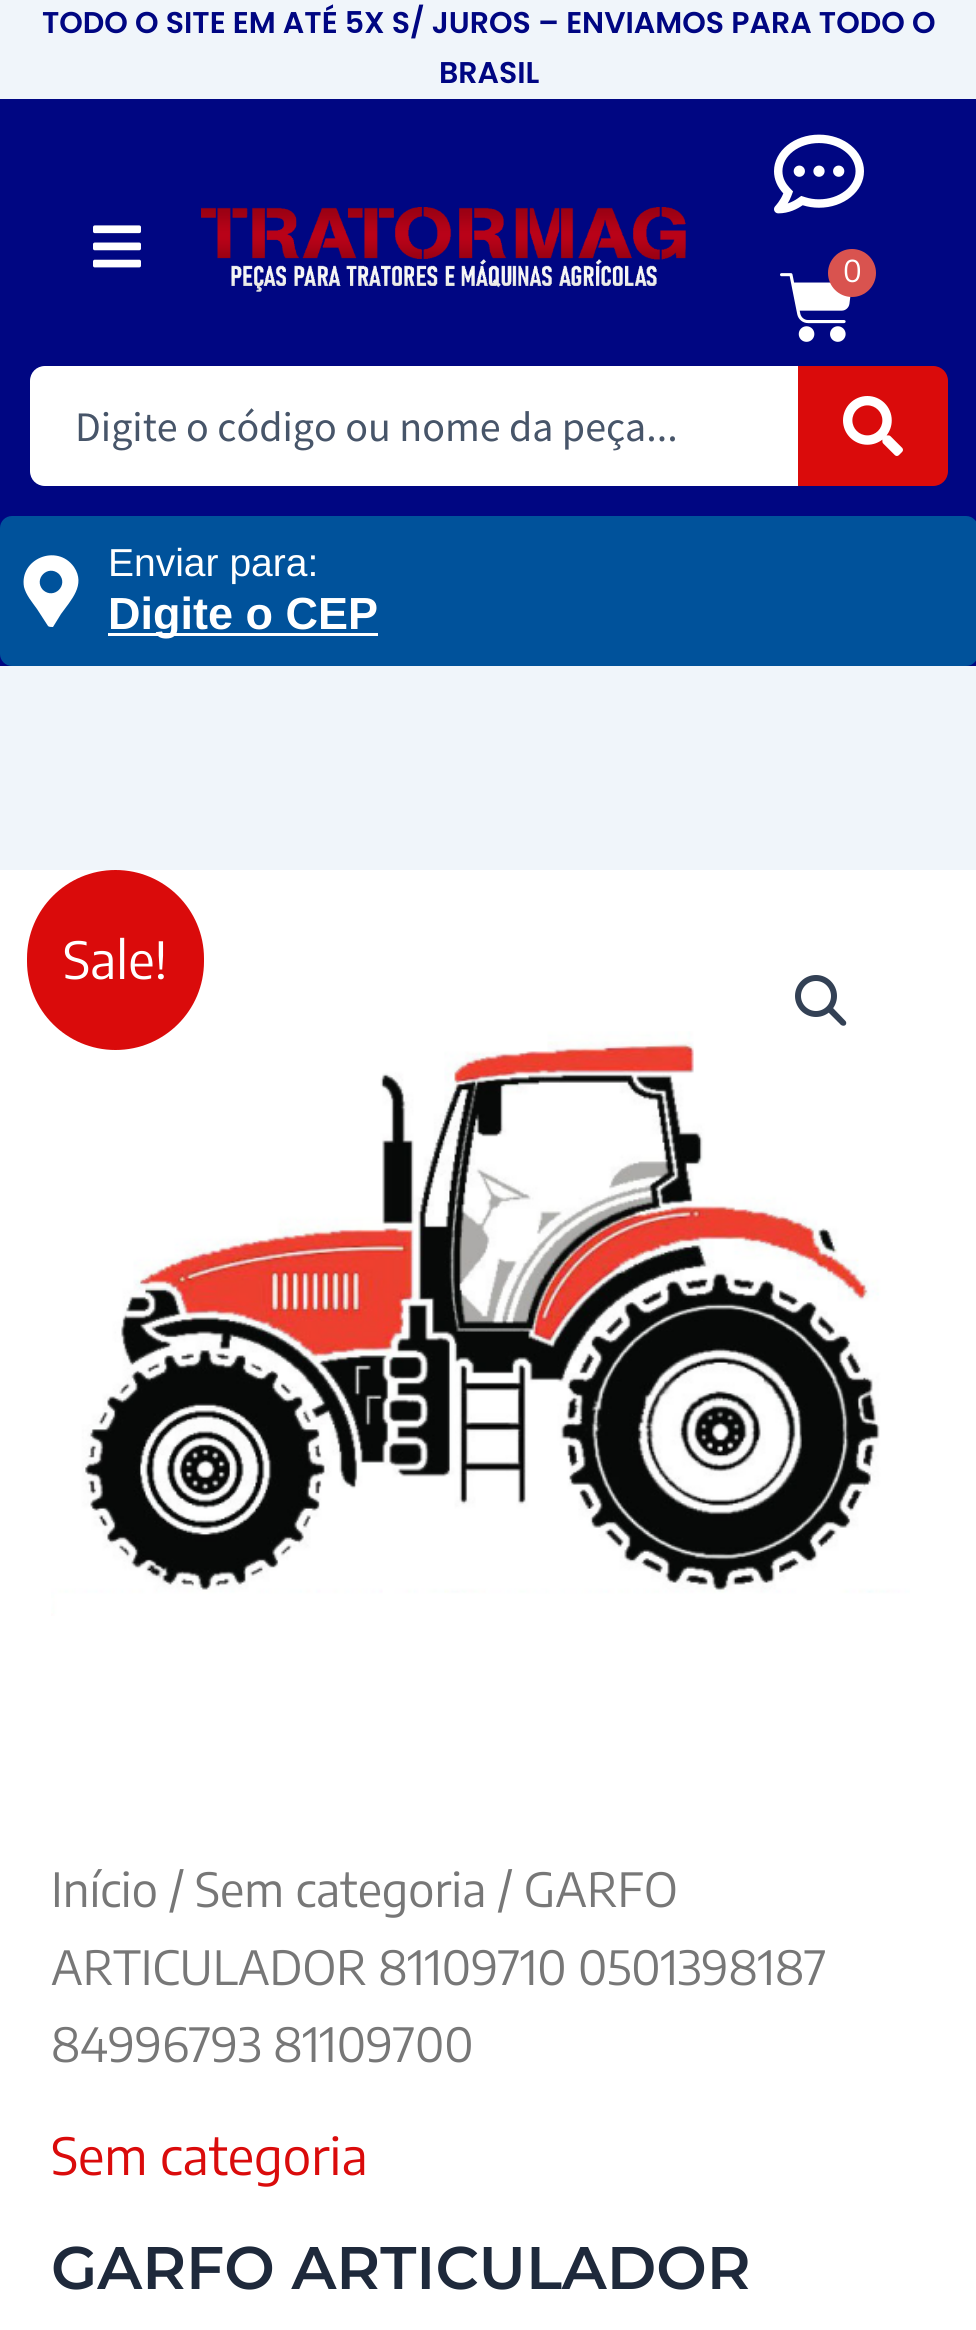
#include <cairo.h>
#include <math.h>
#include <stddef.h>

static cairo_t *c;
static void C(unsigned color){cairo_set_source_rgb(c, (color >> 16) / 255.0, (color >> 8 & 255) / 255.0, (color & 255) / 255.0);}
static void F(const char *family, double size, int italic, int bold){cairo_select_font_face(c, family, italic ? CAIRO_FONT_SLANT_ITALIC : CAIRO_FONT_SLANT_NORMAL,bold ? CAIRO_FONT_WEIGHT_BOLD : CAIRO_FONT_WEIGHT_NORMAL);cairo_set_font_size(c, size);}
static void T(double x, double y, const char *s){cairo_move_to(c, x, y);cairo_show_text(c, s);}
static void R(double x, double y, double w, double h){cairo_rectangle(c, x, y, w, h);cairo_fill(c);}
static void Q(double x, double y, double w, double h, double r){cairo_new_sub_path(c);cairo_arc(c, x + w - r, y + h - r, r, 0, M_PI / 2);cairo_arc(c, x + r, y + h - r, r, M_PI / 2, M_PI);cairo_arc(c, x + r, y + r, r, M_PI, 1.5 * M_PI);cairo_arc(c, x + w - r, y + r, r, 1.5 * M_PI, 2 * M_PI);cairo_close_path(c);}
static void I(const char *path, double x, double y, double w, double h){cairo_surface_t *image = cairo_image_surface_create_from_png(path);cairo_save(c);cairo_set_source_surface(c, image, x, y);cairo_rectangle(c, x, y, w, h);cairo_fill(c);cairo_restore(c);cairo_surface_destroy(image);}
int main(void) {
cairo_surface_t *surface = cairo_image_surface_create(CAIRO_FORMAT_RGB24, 976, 2330);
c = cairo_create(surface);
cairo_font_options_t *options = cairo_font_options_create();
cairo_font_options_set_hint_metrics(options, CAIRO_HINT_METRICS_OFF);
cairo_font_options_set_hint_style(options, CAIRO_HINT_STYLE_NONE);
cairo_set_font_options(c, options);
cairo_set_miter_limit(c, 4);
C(0xf0f5fa);
cairo_paint(c);
F("Poppins SemiBold",30,0,0);
C(0x000682);
T(42,33,"TODO O SITE EM ATÉ 5X S/ JUROS – ENVIAMOS PARA TODO O");
T(439,83,"BRASIL");
R(0,99,976,567);
I("1.png",93,225,48,43);
I("2.png",201,207,485,85);
I("3.png",774,134,90,80);
I("4.png",780,273,71,69);
C(0xd9534f);
cairo_arc(c,852,273,24,0,2 * M_PI);
cairo_fill(c);
F("Encode Sans Condensed",30,0,0);
C(0xffffff);
T(843,282,"0");
cairo_new_path(c);
cairo_move_to(c,45,366);
cairo_line_to(c,798,366);
cairo_line_to(c,798,486);
cairo_line_to(c,45,486);
cairo_curve_to(c,36.5,486,30,479.5,30,471);
cairo_line_to(c,30,381);
cairo_curve_to(c,30,372.5,36.5,366,45,366);
cairo_close_path(c);
cairo_fill(c);
F("Source Sans Pro",42,0,0);
C(0x475569);
T(75,441,"Digite o código ou nome da peça...");
C(0xda0b0b);
cairo_new_path(c);
cairo_move_to(c,798,366);
cairo_line_to(c,933,366);
cairo_curve_to(c,941.5,366,948,372.5,948,381);
cairo_line_to(c,948,471);
cairo_curve_to(c,948,479.5,941.5,486,933,486);
cairo_line_to(c,798,486);
cairo_close_path(c);
cairo_fill(c);
I("5.png",843,396,60,60);
C(0x00529b);
Q(0,516,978,150,12);
cairo_fill(c);
C(0xffffff);
cairo_new_path(c);
cairo_move_to(c,48,626);
cairo_line_to(c,37,609);
cairo_curve_to(c,32,602,26,595,24,587);
cairo_curve_to(c,19,559,57,543,74,567);
cairo_curve_to(c,86,585,71,600,61,614);
cairo_line_to(c,53,627);
cairo_curve_to(c,51,627,49,627,48,626);
cairo_close_path(c);
cairo_move_to(c,43,590);
cairo_curve_to(c,54,600,69,585,59,574);
cairo_curve_to(c,48,564,33,579,43,590);
cairo_close_path(c);
cairo_fill(c);
F("Liberation Sans",39,0,0);
T(108,576,"Enviar para:");
R(108,633,270,3);
F("Liberation Sans",45,0,1);
T(108,629,"Digite o CEP");
R(0,870,976,1460);
I("6.png",51,1031,859,585);
C(0xda0b0b);
Q(27,870,177,180,88.5);
cairo_fill(c);
F("Encode Sans Condensed",51,0,0);
C(0xffffff);
T(63,979,"Sale!");
cairo_new_path(c);
cairo_arc(c,816,996,18,0,2 * M_PI);
C(0x334155);
cairo_set_line_width(c,6);
cairo_stroke(c);
cairo_new_path(c);
cairo_move_to(c,828.5,1008);
cairo_curve_to(c,829.5,1007,831.5,1007,833,1008);
cairo_line_to(c,845.5,1021);
cairo_curve_to(c,846.5,1022,846.5,1024,845.5,1025);
cairo_curve_to(c,844.5,1026,842.5,1026,841,1025);
cairo_line_to(c,828.5,1012.5);
cairo_curve_to(c,827.5,1011,827.5,1009.5,828.5,1008);
cairo_close_path(c);
cairo_fill(c);
F("Encode Sans Condensed",46.9,0,0);
C(0x777777);
T(51,1907,"Início / Sem categoria / GARFO");
T(51,1985,"ARTICULADOR 81109710 0501398187");
T(51,2062,"84996793 81109700");
F("Encode Sans Condensed",51,0,0);
C(0xda0b0b);
T(51,2175,"Sem categoria");
F("Montserrat SemiBold",60,0,0);
C(0x1e293b);
T(51,2289,"GARFO ARTICULADOR");
cairo_surface_write_to_png(surface, "o.png");
cairo_font_options_destroy(options);
cairo_destroy(c);
cairo_surface_destroy(surface);
return 0;
}
